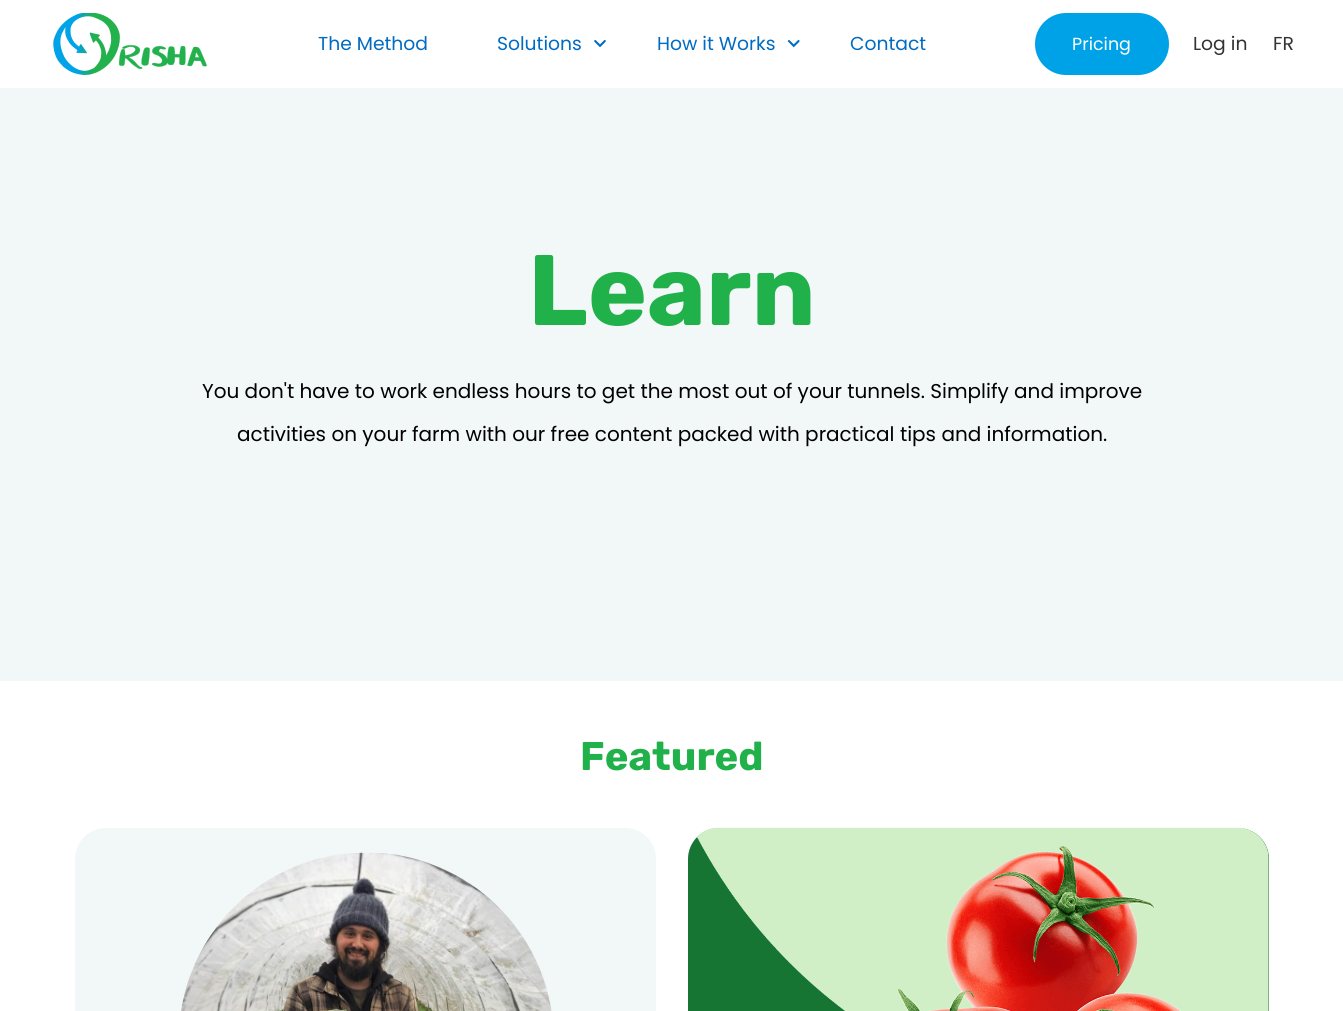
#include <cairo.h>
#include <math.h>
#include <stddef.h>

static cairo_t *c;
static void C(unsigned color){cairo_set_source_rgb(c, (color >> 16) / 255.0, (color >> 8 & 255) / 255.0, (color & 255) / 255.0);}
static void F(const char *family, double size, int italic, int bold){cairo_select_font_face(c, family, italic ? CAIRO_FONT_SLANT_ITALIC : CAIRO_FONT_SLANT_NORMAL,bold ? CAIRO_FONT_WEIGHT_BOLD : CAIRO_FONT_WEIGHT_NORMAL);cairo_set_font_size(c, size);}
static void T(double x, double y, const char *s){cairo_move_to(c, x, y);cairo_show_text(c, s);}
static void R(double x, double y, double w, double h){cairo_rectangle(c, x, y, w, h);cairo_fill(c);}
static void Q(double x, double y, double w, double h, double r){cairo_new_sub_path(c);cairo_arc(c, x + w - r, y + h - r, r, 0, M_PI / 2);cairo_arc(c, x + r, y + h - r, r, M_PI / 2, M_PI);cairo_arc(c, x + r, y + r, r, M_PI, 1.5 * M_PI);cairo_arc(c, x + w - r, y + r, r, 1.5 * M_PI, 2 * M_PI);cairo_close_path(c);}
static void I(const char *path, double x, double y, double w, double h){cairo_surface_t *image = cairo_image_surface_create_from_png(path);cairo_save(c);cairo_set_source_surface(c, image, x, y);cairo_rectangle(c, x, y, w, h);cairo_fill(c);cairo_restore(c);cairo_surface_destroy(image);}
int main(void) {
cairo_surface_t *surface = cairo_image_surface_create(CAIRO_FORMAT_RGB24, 1343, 1011);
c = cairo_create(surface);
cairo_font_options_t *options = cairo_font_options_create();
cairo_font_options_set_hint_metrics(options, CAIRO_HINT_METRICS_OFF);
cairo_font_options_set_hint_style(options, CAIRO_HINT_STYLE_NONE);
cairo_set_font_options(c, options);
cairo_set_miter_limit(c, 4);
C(0xffffff);
cairo_paint(c);
I("1.png",53,13,154,62);
F("Poppins",18.75,0,0);
C(0x006bc2);
T(318,50,"The Method");
I("2.png",594,40,12,8);
T(497,50,"Solutions");
I("3.png",787,40,13,8);
T(657,50,"How it Works");
T(850,50,"Contact");
C(0x00a2e7);
Q(1035,13,134,62,31);
cairo_fill(c);
F("Poppins",17.5,0,0);
C(0xffffff);
T(1072,50,"Pricing");
F("Poppins",18.75,0,0);
C(0x333333);
T(1193,50,"Log in");
T(1273,50,"FR");
C(0xf2f7f8);
R(0,88,1343,593);
F("Rubik Light",100,0,0);
C(0x21b14b);
T(528,325,"Learn");
F("Poppins",20,0,0);
C(0x000000);
T(202,398,"You don't have to work endless hours to get the most out of your tunnels. Simplify and improve");
T(237,441,"activities on your farm with our free content packed with practical tips and information.");
F("Rubik Light",40,0,0);
C(0x21b14b);
T(580,770,"Featured");
C(0xf2f7f8);
Q(75,828,581,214,31);
cairo_fill(c);
I("4.png",181,852,371,159);
C(0x177533);
Q(688,828,581,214,31);
cairo_fill(c);
I("5.png",697,827,572,184);
cairo_surface_write_to_png(surface, "o.png");
cairo_font_options_destroy(options);
cairo_destroy(c);
cairo_surface_destroy(surface);
return 0;
}
